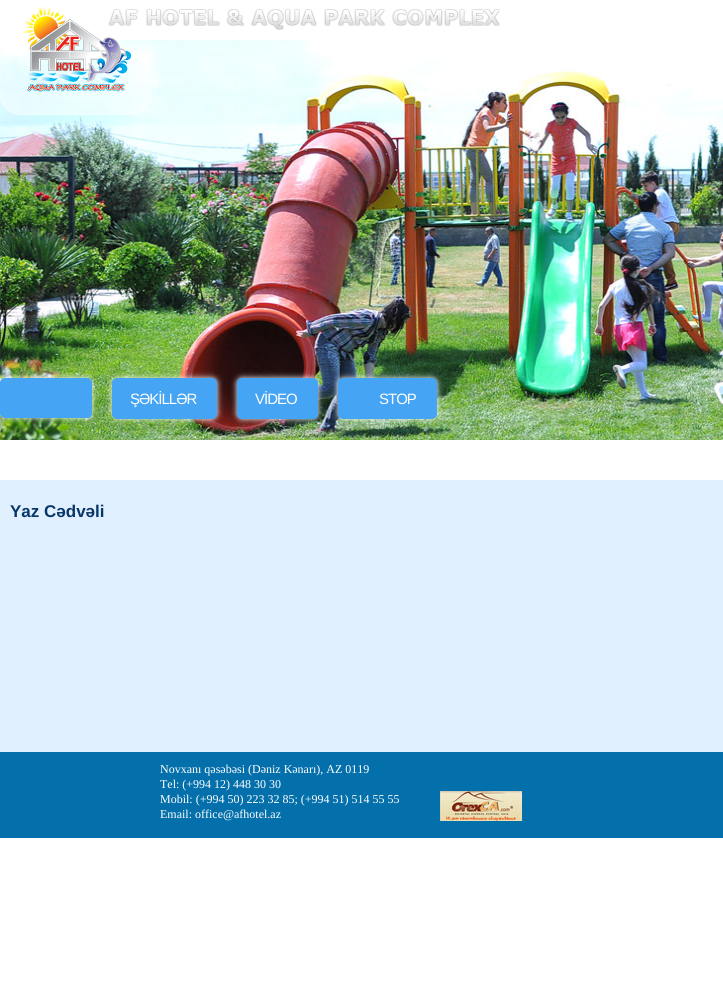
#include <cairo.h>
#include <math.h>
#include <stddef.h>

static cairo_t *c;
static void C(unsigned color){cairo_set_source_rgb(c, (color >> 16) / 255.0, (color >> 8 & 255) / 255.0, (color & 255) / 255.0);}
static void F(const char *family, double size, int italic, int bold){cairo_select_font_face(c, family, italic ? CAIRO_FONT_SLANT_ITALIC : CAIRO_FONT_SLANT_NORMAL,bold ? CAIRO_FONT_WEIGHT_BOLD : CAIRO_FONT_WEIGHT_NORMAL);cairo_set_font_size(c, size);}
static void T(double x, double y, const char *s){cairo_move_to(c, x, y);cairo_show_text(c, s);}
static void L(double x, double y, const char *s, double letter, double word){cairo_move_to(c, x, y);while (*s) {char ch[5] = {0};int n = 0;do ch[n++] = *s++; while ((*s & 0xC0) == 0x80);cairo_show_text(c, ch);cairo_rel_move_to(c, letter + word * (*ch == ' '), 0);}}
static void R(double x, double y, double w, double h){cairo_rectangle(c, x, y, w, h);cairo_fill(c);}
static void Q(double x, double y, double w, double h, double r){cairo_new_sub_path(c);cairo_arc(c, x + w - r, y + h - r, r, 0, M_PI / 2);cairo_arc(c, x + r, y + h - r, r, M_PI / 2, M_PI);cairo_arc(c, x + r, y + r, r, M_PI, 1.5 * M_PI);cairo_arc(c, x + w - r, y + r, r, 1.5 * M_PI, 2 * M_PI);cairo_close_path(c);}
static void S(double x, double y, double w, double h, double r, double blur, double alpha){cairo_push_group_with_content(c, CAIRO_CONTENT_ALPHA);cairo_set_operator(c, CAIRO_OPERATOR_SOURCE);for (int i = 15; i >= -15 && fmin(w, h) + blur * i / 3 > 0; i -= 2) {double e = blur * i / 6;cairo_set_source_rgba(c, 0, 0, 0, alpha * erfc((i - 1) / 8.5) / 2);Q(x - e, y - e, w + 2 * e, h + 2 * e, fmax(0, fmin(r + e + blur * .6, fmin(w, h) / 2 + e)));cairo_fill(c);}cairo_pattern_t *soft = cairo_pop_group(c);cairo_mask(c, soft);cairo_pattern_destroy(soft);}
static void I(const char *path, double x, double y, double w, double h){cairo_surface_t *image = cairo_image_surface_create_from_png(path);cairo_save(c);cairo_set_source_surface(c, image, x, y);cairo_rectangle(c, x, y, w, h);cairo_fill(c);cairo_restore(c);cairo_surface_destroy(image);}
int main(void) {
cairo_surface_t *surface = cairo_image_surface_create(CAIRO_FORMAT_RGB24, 723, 986);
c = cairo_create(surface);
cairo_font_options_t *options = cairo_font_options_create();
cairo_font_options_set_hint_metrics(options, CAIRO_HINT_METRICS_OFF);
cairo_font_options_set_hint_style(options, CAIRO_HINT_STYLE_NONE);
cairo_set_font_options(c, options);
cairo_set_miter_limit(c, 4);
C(0xffffff);
cairo_paint(c);
I("2.png",0,40,723,400);
I("1.png",0,6,500,109);
S(0,378,92,40,5,3,1);
C(0x45a4f4);
Q(.5,378.5,91,39,4.5);
cairo_fill_preserve(c);
cairo_set_line_width(c,1);
cairo_stroke(c);
C(0xffffff);
S(112,378,105,41,5,3,1);
C(0x45a4f4);
Q(112.5,378.5,104,40,4.5);
cairo_fill_preserve(c);
cairo_stroke(c);
F("Liberation Sans",15,0,0);
C(0xffffff);
L(130,404,"ŞƏKİLLƏR",-1,0);
C(0xffffff);
S(237,378,81,41,5,3,1);
C(0x45a4f4);
Q(237.5,378.5,80,40,4.5);
cairo_fill_preserve(c);
cairo_stroke(c);
C(0xffffff);
L(255,404,"VİDEO",-1,0);
C(0xffffff);
S(338,378,99,41,5,3,1);
C(0x45a4f4);
Q(338.5,378.5,98,40,4.5);
cairo_fill_preserve(c);
cairo_stroke(c);
C(0xffffff);
L(379,404,"STOP",-1,0);
C(0xe0f0ff);
R(0,480,723,272);
F("Liberation Sans",17,0,1);
C(0x083768);
T(10,517,"Yaz Cədvəli");
C(0x036fab);
R(0,752,723,86);
F("Liberation Serif",12,0,0);
C(0xffffff);
T(160,773,"Novxanı qəsəbəsi (Dəniz Kənarı), AZ 0119");
T(160,788,"Tel: (+994 12) 448 30 30");
T(160,803,"Mobil: (+994 50) 223 32 85; (+994 51) 514 55 55");
T(160,818,"Email: office@afhotel.az");
I("3.png",440,791,82,30);
cairo_surface_write_to_png(surface, "o.png");
cairo_font_options_destroy(options);
cairo_destroy(c);
cairo_surface_destroy(surface);
return 0;
}
